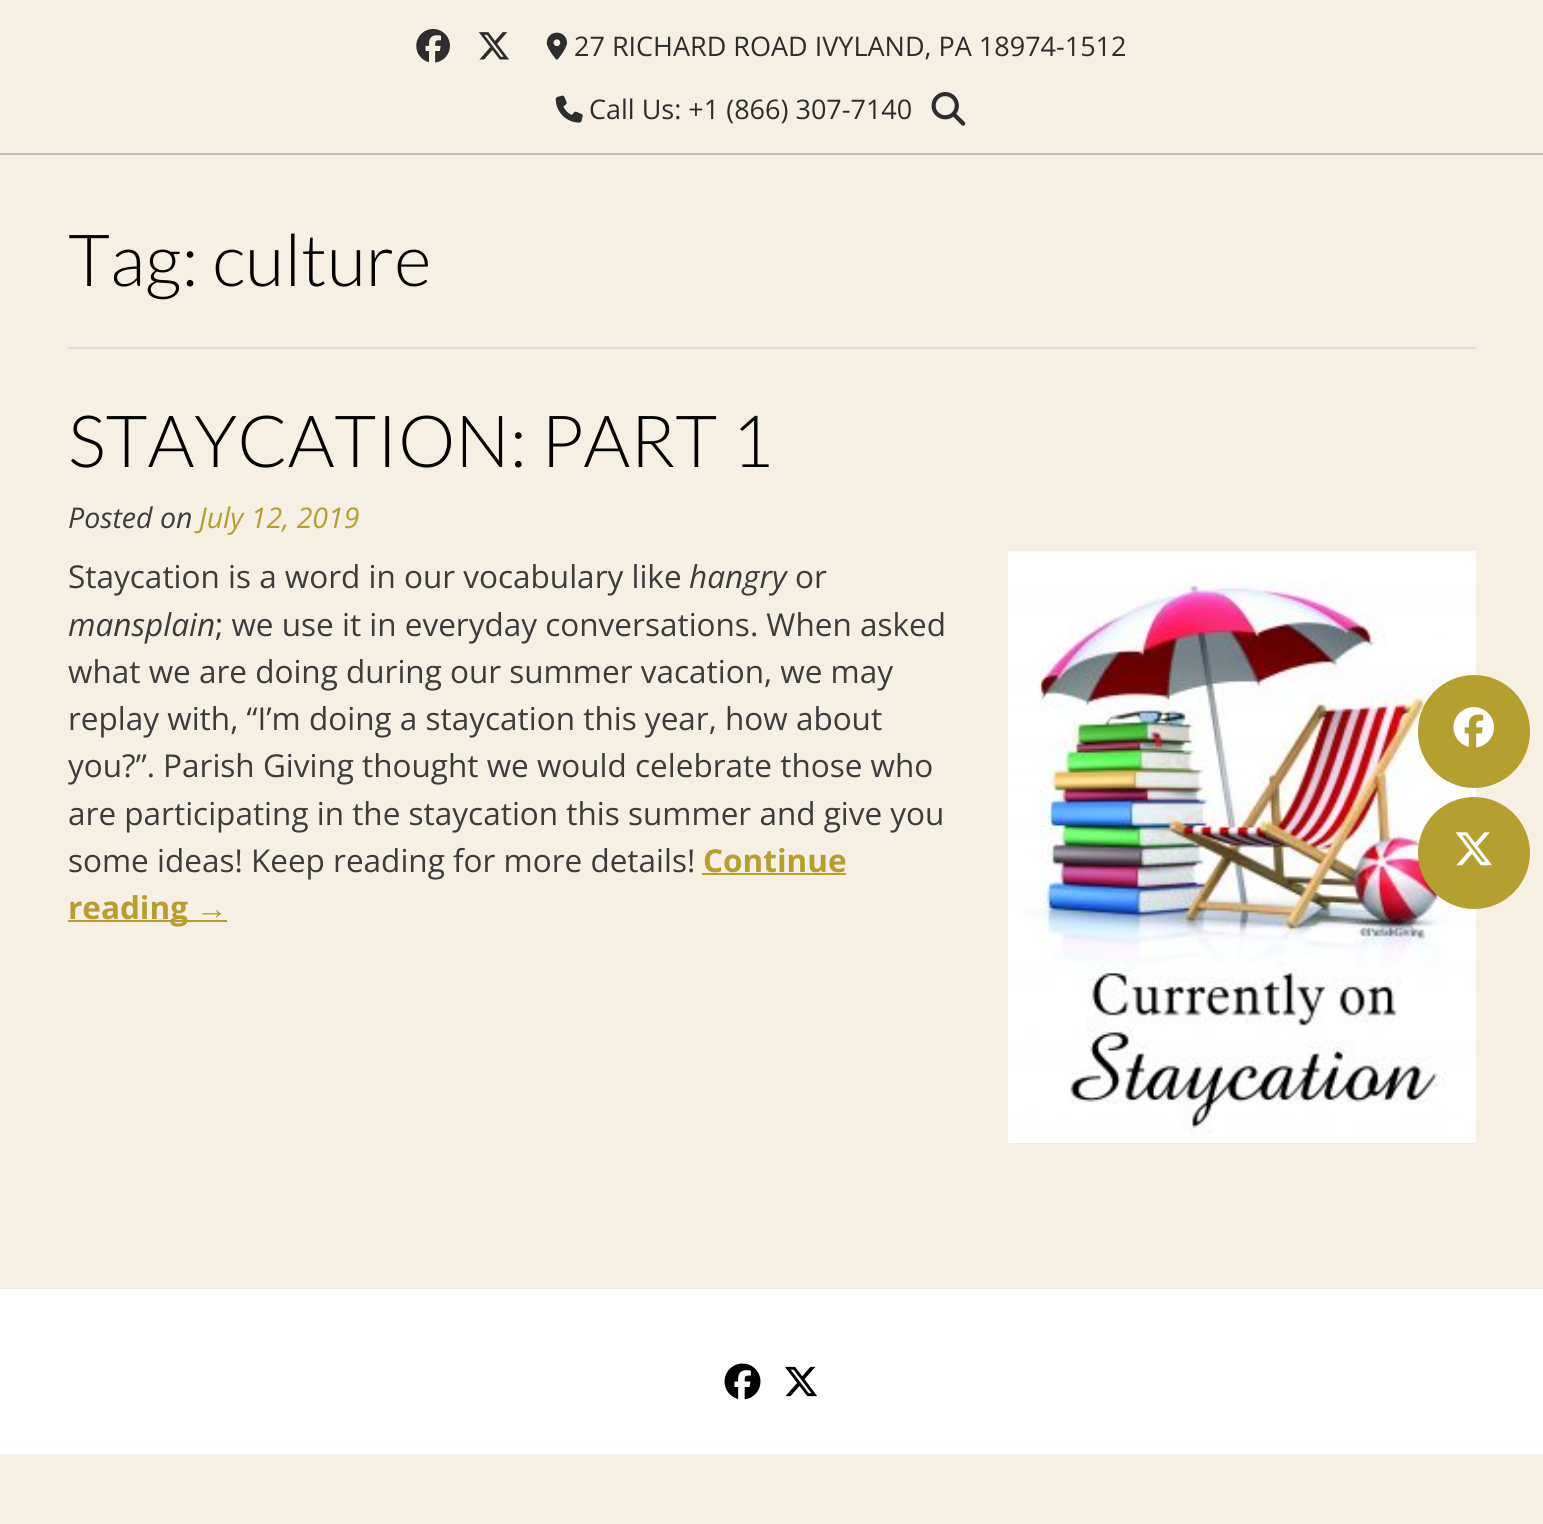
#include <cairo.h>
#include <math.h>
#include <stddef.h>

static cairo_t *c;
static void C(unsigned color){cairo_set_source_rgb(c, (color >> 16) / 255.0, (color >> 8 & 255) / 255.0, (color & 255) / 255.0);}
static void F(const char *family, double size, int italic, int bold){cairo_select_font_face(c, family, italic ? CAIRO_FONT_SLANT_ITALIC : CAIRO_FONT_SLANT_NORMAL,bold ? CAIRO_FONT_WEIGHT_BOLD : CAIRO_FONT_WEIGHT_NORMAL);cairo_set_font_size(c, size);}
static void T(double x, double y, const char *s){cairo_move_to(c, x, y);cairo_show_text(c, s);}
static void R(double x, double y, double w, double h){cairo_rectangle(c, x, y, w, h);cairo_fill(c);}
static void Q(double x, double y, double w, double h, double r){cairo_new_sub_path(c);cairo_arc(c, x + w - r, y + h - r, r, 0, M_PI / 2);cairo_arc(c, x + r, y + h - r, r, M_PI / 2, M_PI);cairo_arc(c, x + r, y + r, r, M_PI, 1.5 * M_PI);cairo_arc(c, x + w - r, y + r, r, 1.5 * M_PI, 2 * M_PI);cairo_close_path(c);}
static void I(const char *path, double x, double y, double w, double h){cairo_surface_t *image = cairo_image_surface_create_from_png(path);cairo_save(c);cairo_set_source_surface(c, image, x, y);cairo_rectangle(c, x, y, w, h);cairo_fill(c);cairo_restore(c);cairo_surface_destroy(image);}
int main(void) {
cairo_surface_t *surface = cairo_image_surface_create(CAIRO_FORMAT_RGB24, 1543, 1524);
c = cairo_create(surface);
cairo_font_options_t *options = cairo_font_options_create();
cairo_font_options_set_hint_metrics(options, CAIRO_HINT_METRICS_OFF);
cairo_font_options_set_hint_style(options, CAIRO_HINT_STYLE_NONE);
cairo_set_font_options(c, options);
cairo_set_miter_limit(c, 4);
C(0xf5efe4);
cairo_paint(c);
C(0xc2beb4);
R(0,153,1543,2);
I("1.png",416,29,34,34);
I("2.png",478,32,31,28);
I("3.png",546,32,21,28);
F("Open Sans",27,0,0);
C(0x2d2d2d);
T(574,56,"27 RICHARD ROAD IVYLAND, PA 18974-1512");
I("4.png",555,95,28,28);
T(589,119,"Call Us: +1 (866) 307-7140");
I("5.png",931,92,35,34);
C(0xe1dcd2);
R(68,347,1408,2);
F("Lato Light",72,0,0);
C(0x000000);
T(68,286,"Tag: culture");
T(68,467,"STAYCATION: PART 1");
F("Open Sans",28.5,1,0);
C(0x3c3c3c);
T(68,528,"Posted on");
C(0xb59f2f);
T(199,528,"July 12, 2019");
F("Open Sans",31.5,0,0);
C(0x3c3c3c);
T(68,588,"Staycation is a word in our vocabulary like");
F("Open Sans",31.5,1,0);
T(689,588,"hangry");
F("Open Sans",31.5,0,0);
T(795,588,"or");
I("6.png",1008,551,468,592);
F("Open Sans",31.5,1,0);
T(68,636,"mansplain");
F("Open Sans",31.5,0,0);
T(215,636,"; we use it in everyday conversations. When asked");
T(68,683,"what we are doing during our summer vacation, we may");
T(68,730,"replay with, “I’m doing a staycation this year, how about");
T(68,777,"you?”. Parish Giving thought we would celebrate those who");
T(68,825,"are participating in the staycation this summer and give you");
T(68,872,"some ideas! Keep reading for more details!");
F("Open Sans",31.5,0,1);
C(0xb59f2f);
T(703,872,"Continue");
R(702,873,144,2);
R(68,920,159,2);
T(68,919,"reading");
F("Liberation Sans",31.5,0,1);
T(196,919,"→");
C(0xffffff);
R(0,1289,1543,165);
I("7.png",724,1363,37,37);
I("8.png",785,1366,33,31);
C(0xb59f2f);
Q(1418,675,112,113,56);
cairo_fill(c);
I("9.png",1453,707,41,41);
cairo_arc(c,1474,853,56,0,2 * M_PI);
cairo_fill(c);
I("10.png",1455,832,37,34);
cairo_surface_write_to_png(surface, "o.png");
cairo_font_options_destroy(options);
cairo_destroy(c);
cairo_surface_destroy(surface);
return 0;
}
